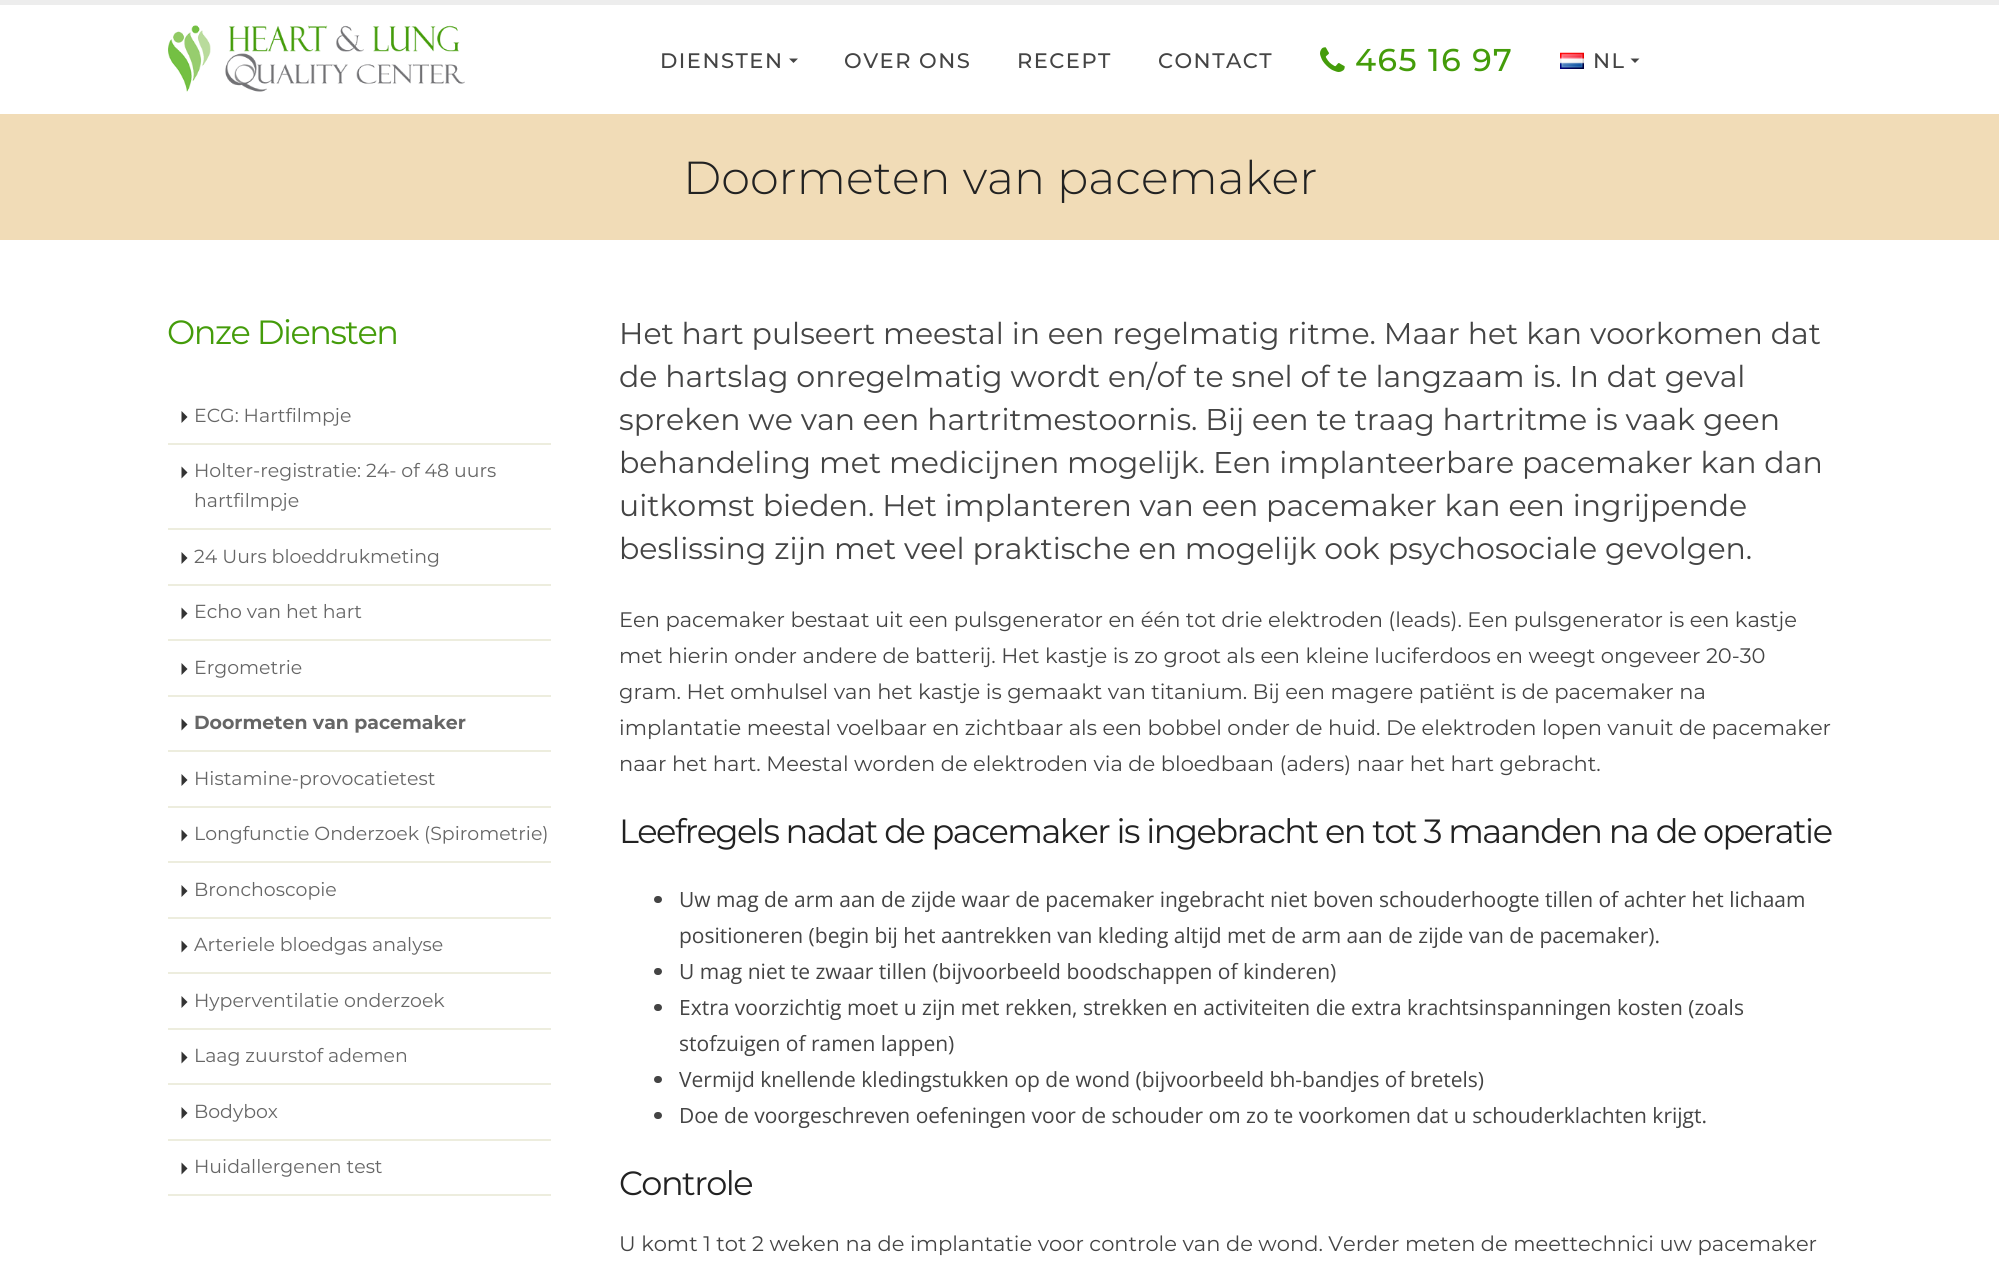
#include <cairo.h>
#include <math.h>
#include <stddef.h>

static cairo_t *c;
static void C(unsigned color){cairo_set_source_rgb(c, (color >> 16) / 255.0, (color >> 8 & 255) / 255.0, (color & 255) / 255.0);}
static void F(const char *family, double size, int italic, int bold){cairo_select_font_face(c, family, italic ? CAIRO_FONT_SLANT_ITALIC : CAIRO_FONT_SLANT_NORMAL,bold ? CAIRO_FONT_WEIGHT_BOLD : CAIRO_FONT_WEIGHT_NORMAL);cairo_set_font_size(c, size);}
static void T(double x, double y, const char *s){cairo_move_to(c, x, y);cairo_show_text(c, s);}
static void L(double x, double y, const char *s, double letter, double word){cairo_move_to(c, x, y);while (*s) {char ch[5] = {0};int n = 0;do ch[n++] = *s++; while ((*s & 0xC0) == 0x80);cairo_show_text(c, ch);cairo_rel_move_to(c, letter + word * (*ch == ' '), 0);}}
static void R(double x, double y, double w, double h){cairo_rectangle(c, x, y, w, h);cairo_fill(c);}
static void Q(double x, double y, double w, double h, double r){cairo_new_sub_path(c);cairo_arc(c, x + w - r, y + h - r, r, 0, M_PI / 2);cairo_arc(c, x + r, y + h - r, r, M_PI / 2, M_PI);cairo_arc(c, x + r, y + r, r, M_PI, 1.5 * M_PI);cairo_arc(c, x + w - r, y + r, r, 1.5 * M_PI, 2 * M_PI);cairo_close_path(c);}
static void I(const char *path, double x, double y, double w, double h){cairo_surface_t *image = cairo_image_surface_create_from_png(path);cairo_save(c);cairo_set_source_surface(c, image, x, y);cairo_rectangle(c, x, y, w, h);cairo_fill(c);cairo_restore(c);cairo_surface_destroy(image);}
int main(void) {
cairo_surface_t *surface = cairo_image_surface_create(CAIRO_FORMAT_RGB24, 1999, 1273);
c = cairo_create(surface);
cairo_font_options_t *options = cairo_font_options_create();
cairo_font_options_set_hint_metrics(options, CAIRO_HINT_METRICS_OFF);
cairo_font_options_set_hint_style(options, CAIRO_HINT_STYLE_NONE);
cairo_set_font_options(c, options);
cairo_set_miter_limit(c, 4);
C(0xffffff);
cairo_paint(c);
C(0xededed);
R(0,0,1999,5);
I("1.png",168,25,297,67);
F("Montserrat Medium",21,0,0);
C(0x444444);
L(660,68,"DIENSTEN",1.5,0);
cairo_new_path(c);
cairo_move_to(c,789,58.5);
cairo_line_to(c,798,58.5);
cairo_line_to(c,793.5,63);
cairo_close_path(c);
cairo_fill(c);
L(844,68,"OVER ONS",1.5,0);
L(1017,68,"RECEPT",1.5,0);
L(1158,68,"CONTACT",1.5,0);
I("2.png",1320,47,25,25);
F("Montserrat Medium",31.5,0,0);
C(0x449c0a);
L(1355,71,"465 16 97",1.5,0);
I("3.png",1560,52,24,17);
F("Montserrat Medium",21,0,0);
C(0x444444);
L(1593,68,"NL",1.5,0);
cairo_new_path(c);
cairo_move_to(c,1630.5,58.5);
cairo_line_to(c,1639.5,58.5);
cairo_line_to(c,1635,63);
cairo_close_path(c);
cairo_fill(c);
C(0xf1dcb7);
R(0,114,1999,126);
F("Montserrat Light",46.25,0,0);
C(0x222222);
T(683,194,"Doormeten van pacemaker");
F("Montserrat",33.6,0,0);
C(0x449c0a);
L(167,344,"Onze Diensten",-1.5,0);
C(0xededde);
R(168,443,383,2);
C(0x333333);
cairo_new_path(c);
cairo_move_to(c,181.5,423);
cairo_line_to(c,181.5,411);
cairo_line_to(c,187.5,417);
cairo_close_path(c);
cairo_fill(c);
F("Montserrat",18.9,0,0);
C(0x666666);
T(194,422,"ECG: Hartfilmpje");
C(0xededde);
R(168,528,383,2);
C(0x333333);
cairo_new_path(c);
cairo_move_to(c,181.5,478.5);
cairo_line_to(c,181.5,466.5);
cairo_line_to(c,187.5,472.5);
cairo_close_path(c);
cairo_fill(c);
C(0x666666);
T(194,477,"Holter-registratie: 24- of 48 uurs");
T(194,507,"hartfilmpje");
C(0xededde);
R(168,584,383,2);
C(0x333333);
cairo_new_path(c);
cairo_move_to(c,181.5,564);
cairo_line_to(c,181.5,552);
cairo_line_to(c,187.5,558);
cairo_close_path(c);
cairo_fill(c);
C(0x666666);
T(194,563,"24 Uurs bloeddrukmeting");
C(0xededde);
R(168,639,383,2);
C(0x333333);
cairo_new_path(c);
cairo_move_to(c,181.5,619.5);
cairo_line_to(c,181.5,607.5);
cairo_line_to(c,187.5,613.5);
cairo_close_path(c);
cairo_fill(c);
C(0x666666);
T(194,618,"Echo van het hart");
C(0xededde);
R(168,695,383,2);
C(0x333333);
cairo_new_path(c);
cairo_move_to(c,181.5,675);
cairo_line_to(c,181.5,663);
cairo_line_to(c,187.5,669);
cairo_close_path(c);
cairo_fill(c);
C(0x666666);
T(194,674,"Ergometrie");
C(0xededde);
R(168,750,383,2);
C(0x333333);
cairo_new_path(c);
cairo_move_to(c,181.5,730.5);
cairo_line_to(c,181.5,718.5);
cairo_line_to(c,187.5,724.5);
cairo_close_path(c);
cairo_fill(c);
F("Montserrat",18.9,0,1);
C(0x666666);
T(194,729,"Doormeten van pacemaker");
C(0xededde);
R(168,806,383,2);
C(0x333333);
cairo_new_path(c);
cairo_move_to(c,181.5,786);
cairo_line_to(c,181.5,774);
cairo_line_to(c,187.5,780);
cairo_close_path(c);
cairo_fill(c);
F("Montserrat",18.9,0,0);
C(0x666666);
T(194,785,"Histamine-provocatietest");
C(0xededde);
R(168,861,383,2);
C(0x333333);
cairo_new_path(c);
cairo_move_to(c,181.5,841.5);
cairo_line_to(c,181.5,829.5);
cairo_line_to(c,187.5,835.5);
cairo_close_path(c);
cairo_fill(c);
C(0x666666);
T(194,840,"Longfunctie Onderzoek (Spirometrie)");
C(0xededde);
R(168,917,383,2);
C(0x333333);
cairo_new_path(c);
cairo_move_to(c,181.5,897);
cairo_line_to(c,181.5,885);
cairo_line_to(c,187.5,891);
cairo_close_path(c);
cairo_fill(c);
C(0x666666);
T(194,896,"Bronchoscopie");
C(0xededde);
R(168,972,383,2);
C(0x333333);
cairo_new_path(c);
cairo_move_to(c,181.5,952.5);
cairo_line_to(c,181.5,940.5);
cairo_line_to(c,187.5,946.5);
cairo_close_path(c);
cairo_fill(c);
C(0x666666);
T(194,951,"Arteriele bloedgas analyse");
C(0xededde);
R(168,1028,383,2);
C(0x333333);
cairo_new_path(c);
cairo_move_to(c,181.5,1008);
cairo_line_to(c,181.5,996);
cairo_line_to(c,187.5,1002);
cairo_close_path(c);
cairo_fill(c);
C(0x666666);
T(194,1007,"Hyperventilatie onderzoek");
C(0xededde);
R(168,1083,383,2);
C(0x333333);
cairo_new_path(c);
cairo_move_to(c,181.5,1063.5);
cairo_line_to(c,181.5,1051.5);
cairo_line_to(c,187.5,1057.5);
cairo_close_path(c);
cairo_fill(c);
C(0x666666);
T(194,1062,"Laag zuurstof ademen");
C(0xededde);
R(168,1139,383,2);
C(0x333333);
cairo_new_path(c);
cairo_move_to(c,181.5,1119);
cairo_line_to(c,181.5,1107);
cairo_line_to(c,187.5,1113);
cairo_close_path(c);
cairo_fill(c);
C(0x666666);
T(194,1118,"Bodybox");
C(0xededde);
R(168,1194,383,2);
C(0x333333);
cairo_new_path(c);
cairo_move_to(c,181.5,1174.5);
cairo_line_to(c,181.5,1162.5);
cairo_line_to(c,187.5,1168.5);
cairo_close_path(c);
cairo_fill(c);
C(0x666666);
T(194,1173,"Huidallergenen test");
F("Montserrat",30,0,0);
C(0x444444);
T(619,344,"Het hart pulseert meestal in een regelmatig ritme. Maar het kan voorkomen dat");
T(619,387,"de hartslag onregelmatig wordt en/of te snel of te langzaam is. In dat geval");
T(619,430,"spreken we van een hartritmestoornis. Bij een te traag hartritme is vaak geen");
T(619,473,"behandeling met medicijnen mogelijk. Een implanteerbare pacemaker kan dan");
T(619,516,"uitkomst bieden. Het implanteren van een pacemaker kan een ingrijpende");
T(619,559,"beslissing zijn met veel praktische en mogelijk ook psychosociale gevolgen.");
F("Montserrat",21,0,0);
T(619,627,"Een pacemaker bestaat uit een pulsgenerator en één tot drie elektroden (leads). Een pulsgenerator is een kastje");
T(619,663,"met hierin onder andere de batterij. Het kastje is zo groot als een kleine luciferdoos en weegt ongeveer 20-30");
T(619,699,"gram. Het omhulsel van het kastje is gemaakt van titanium. Bij een magere patiënt is de pacemaker na");
T(619,735,"implantatie meestal voelbaar en zichtbaar als een bobbel onder de huid. De elektroden lopen vanuit de pacemaker");
T(619,771,"naar het hart. Meestal worden de elektroden via de bloedbaan (aders) naar het hart gebracht.");
F("Montserrat",33.6,0,0);
C(0x222222);
L(619,843,"Leefregels nadat de pacemaker is ingebracht en tot 3 maanden na de operatie",-1.5,0);
C(0x444444);
Q(654,896,8,7,3.5);
cairo_fill(c);
F("Open Sans",21,0,0);
T(679,907,"Uw mag de arm aan de zijde waar de pacemaker ingebracht niet boven schouderhoogte tillen of achter het lichaam");
T(679,943,"positioneren (begin bij het aantrekken van kleding altijd met de arm aan de zijde van de pacemaker).");
Q(654,968,8,7,3.5);
cairo_fill(c);
T(679,979,"U mag niet te zwaar tillen (bijvoorbeeld boodschappen of kinderen)");
Q(654,1004,8,7,3.5);
cairo_fill(c);
T(679,1015,"Extra voorzichtig moet u zijn met rekken, strekken en activiteiten die extra krachtsinspanningen kosten (zoals");
T(679,1051,"stofzuigen of ramen lappen)");
Q(654,1076,8,7,3.5);
cairo_fill(c);
T(679,1087,"Vermijd knellende kledingstukken op de wond (bijvoorbeeld bh-bandjes of bretels)");
Q(654,1112,8,7,3.5);
cairo_fill(c);
T(679,1123,"Doe de voorgeschreven oefeningen voor de schouder om zo te voorkomen dat u schouderklachten krijgt.");
F("Montserrat",33.6,0,0);
C(0x222222);
L(619,1195,"Controle",-1.5,0);
F("Montserrat",21,0,0);
C(0x444444);
T(619,1251,"U komt 1 tot 2 weken na de implantatie voor controle van de wond. Verder meten de meettechnici uw pacemaker");
cairo_surface_write_to_png(surface, "o.png");
cairo_font_options_destroy(options);
cairo_destroy(c);
cairo_surface_destroy(surface);
return 0;
}
